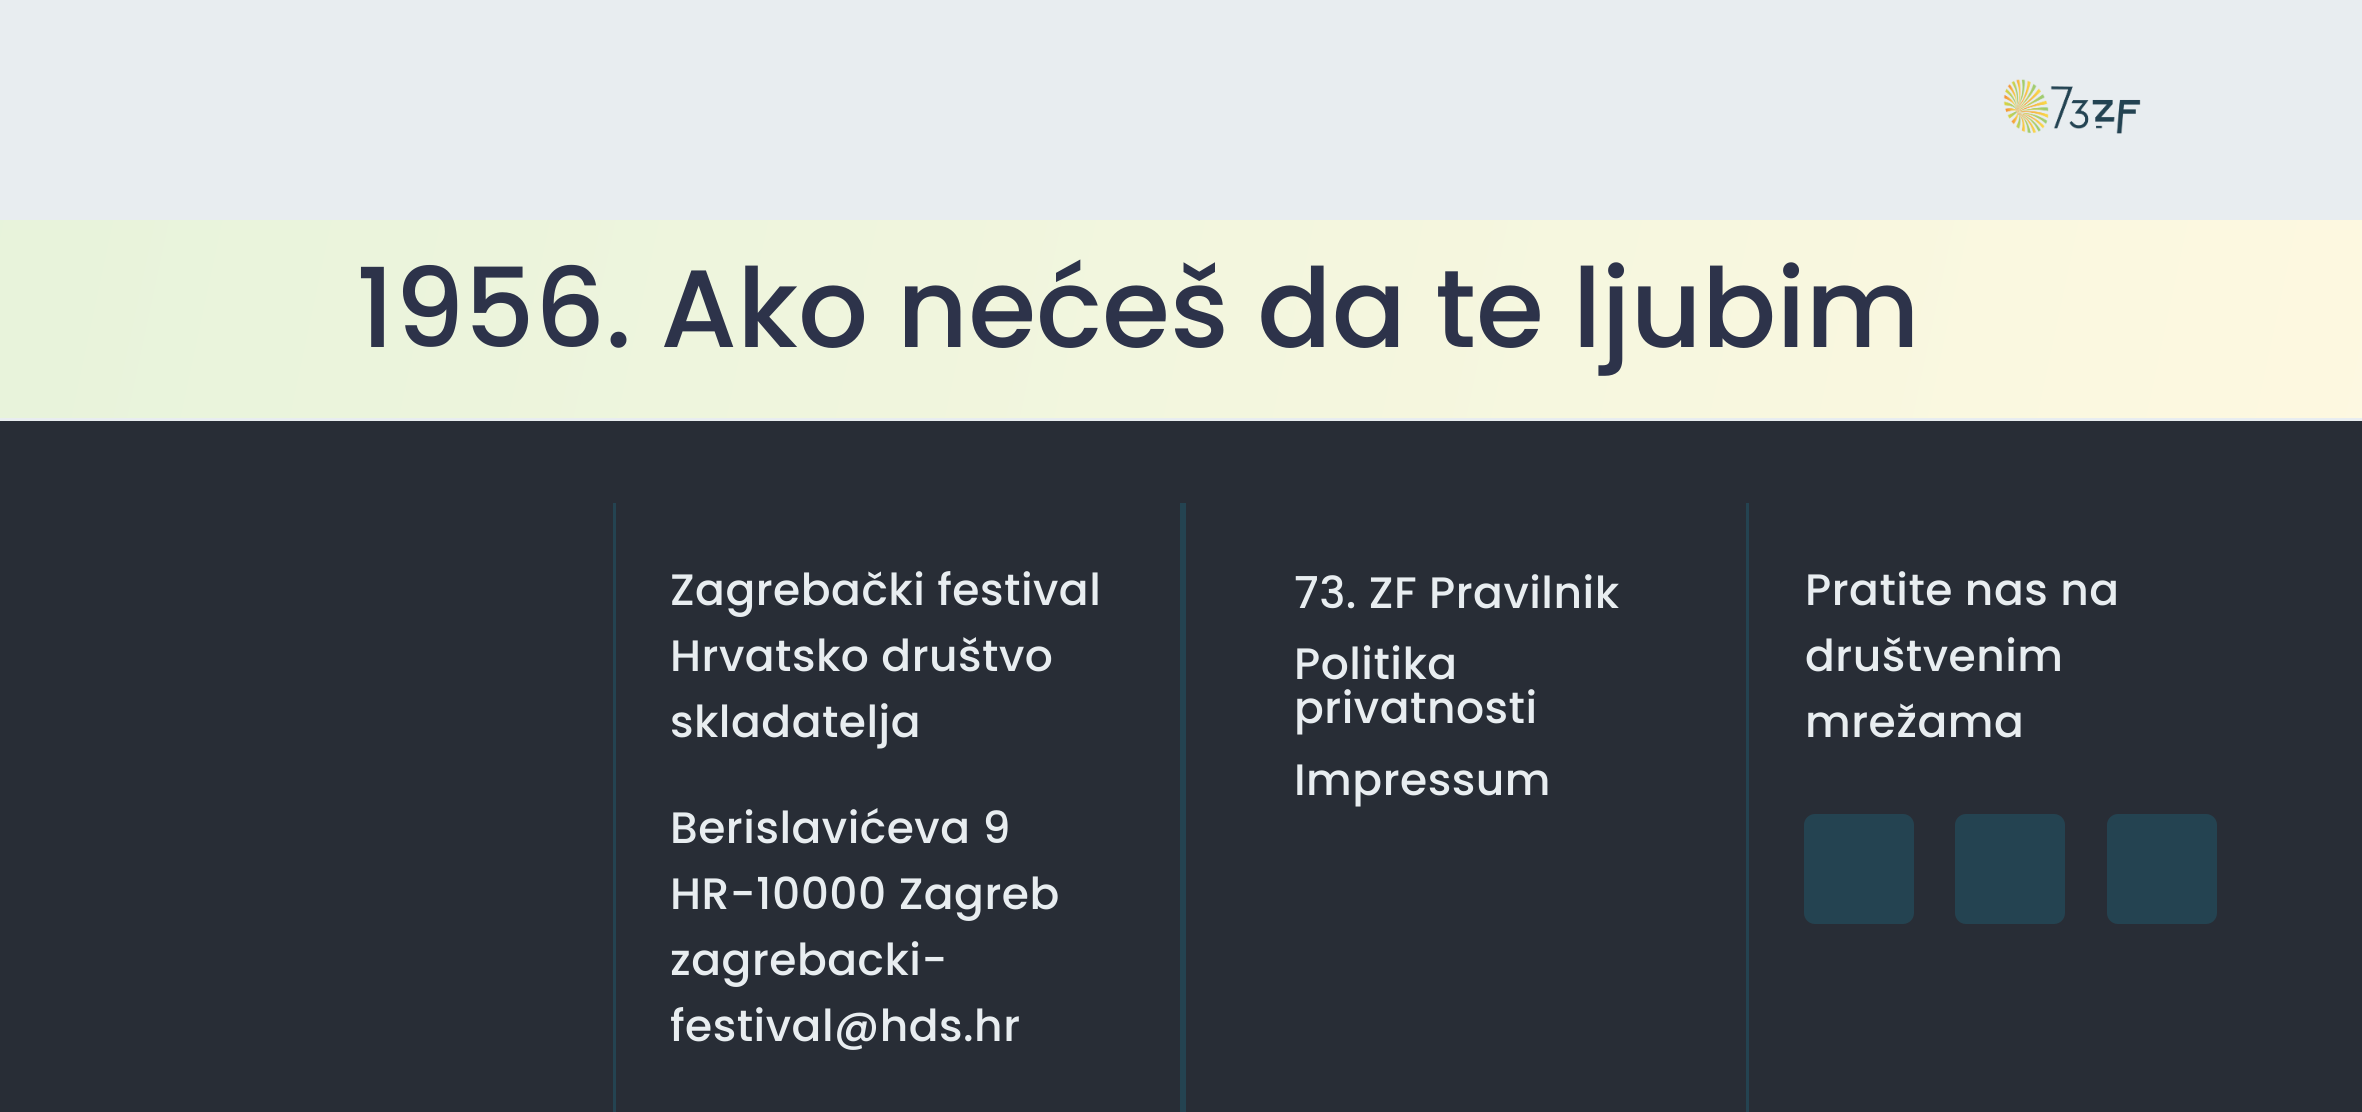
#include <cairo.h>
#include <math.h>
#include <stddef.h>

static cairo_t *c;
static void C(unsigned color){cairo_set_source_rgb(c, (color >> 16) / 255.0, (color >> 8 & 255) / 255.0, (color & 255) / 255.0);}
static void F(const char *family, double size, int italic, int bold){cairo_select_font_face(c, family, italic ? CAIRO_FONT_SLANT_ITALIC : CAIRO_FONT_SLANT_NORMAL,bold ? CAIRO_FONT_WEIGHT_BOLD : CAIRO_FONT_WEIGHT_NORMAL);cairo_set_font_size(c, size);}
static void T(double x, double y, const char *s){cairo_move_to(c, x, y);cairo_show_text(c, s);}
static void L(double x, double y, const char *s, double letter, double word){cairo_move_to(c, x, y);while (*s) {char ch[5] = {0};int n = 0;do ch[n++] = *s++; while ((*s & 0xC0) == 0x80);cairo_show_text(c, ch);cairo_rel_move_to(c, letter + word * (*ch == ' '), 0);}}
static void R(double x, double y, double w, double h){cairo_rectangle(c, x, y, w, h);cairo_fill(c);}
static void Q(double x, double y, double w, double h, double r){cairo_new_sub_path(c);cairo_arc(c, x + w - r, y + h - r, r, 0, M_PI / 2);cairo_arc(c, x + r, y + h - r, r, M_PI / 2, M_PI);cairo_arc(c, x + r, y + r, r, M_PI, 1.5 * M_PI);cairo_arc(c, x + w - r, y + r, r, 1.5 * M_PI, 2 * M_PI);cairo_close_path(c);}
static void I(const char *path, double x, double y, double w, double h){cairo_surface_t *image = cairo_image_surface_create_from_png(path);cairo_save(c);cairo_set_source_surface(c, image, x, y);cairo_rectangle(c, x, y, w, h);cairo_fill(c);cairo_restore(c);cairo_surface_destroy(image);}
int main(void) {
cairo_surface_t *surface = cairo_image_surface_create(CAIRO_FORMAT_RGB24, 2362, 1112);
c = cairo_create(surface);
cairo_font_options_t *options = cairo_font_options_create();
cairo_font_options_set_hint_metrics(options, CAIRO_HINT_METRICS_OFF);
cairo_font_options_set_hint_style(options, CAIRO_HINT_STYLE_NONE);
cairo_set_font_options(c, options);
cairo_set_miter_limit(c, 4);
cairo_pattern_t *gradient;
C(0xffffff);
cairo_paint(c);
gradient = cairo_pattern_create_linear(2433,866,-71,333);
cairo_pattern_add_color_stop_rgba(gradient,0,1,0.976,0.882,1);
cairo_pattern_add_color_stop_rgba(gradient,1,0.906,0.953,0.859,1);
cairo_set_source(c,gradient);
cairo_pattern_destroy(gradient);
R(0,220,2362,198);
C(0xe8edf0);
R(0,0,2362,220);
I("1.png",2003,79,138,55);
F("Poppins Medium",110,0,0);
C(0x2d334a);
T(356,347,"1956. Ako nećeš da te ljubim");
C(0x282d36);
R(0,421,2362,691);
C(0xe8edf0);
R(0,418,2362,3);
C(0x244351);
R(1180,503,6,609);
R(613,503,3,609);
F("Poppins Medium",44,0,0);
C(0xe8edf0);
L(670,605,"Zagrebački festival",.5,0);
L(670,671,"Hrvatsko društvo",.5,0);
L(670,737,"skladatelja",.5,0);
L(670,843,"Berislavićeva 9",.5,0);
L(670,909,"HR-10000 Zagreb",.5,0);
L(670,975,"zagrebacki-",.5,0);
L(670,1041,"festival@hds.hr",.5,0);
C(0x244351);
R(1746,503,3,609);
C(0xe8edf0);
L(1294,608,"73. ZF Pravilnik",.5,0);
L(1294,679,"Politika",.5,0);
L(1294,723,"privatnosti",.5,0);
L(1294,795,"Impressum",.5,0);
L(1805,605,"Pratite nas na",.5,0);
L(1805,671,"društvenim",.5,0);
L(1805,737,"mrežama",.5,0);
C(0x244351);
Q(1804,814,110,110,11);
cairo_fill(c);
Q(1955,814,110,110,11);
cairo_fill(c);
Q(2107,814,110,110,11);
cairo_fill(c);
cairo_surface_write_to_png(surface, "o.png");
cairo_font_options_destroy(options);
cairo_destroy(c);
cairo_surface_destroy(surface);
return 0;
}
